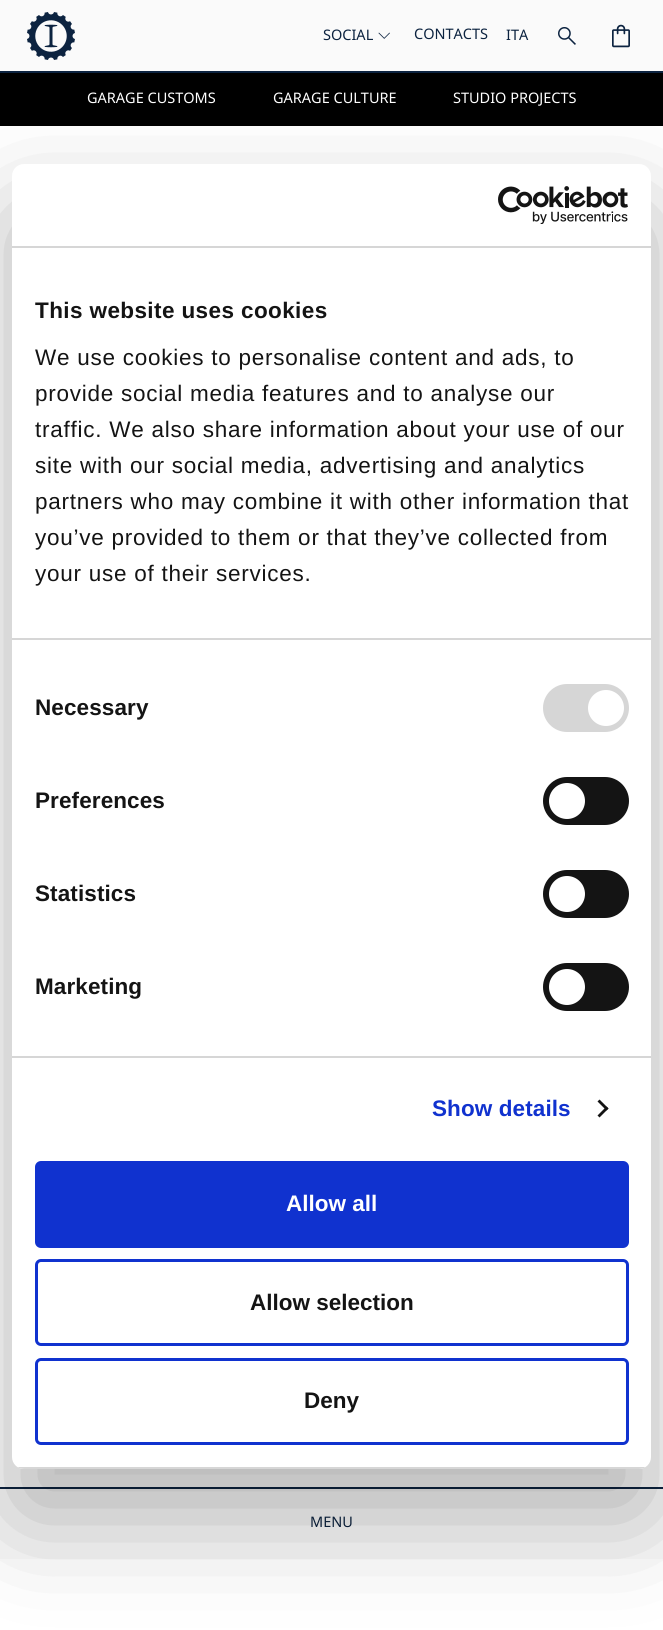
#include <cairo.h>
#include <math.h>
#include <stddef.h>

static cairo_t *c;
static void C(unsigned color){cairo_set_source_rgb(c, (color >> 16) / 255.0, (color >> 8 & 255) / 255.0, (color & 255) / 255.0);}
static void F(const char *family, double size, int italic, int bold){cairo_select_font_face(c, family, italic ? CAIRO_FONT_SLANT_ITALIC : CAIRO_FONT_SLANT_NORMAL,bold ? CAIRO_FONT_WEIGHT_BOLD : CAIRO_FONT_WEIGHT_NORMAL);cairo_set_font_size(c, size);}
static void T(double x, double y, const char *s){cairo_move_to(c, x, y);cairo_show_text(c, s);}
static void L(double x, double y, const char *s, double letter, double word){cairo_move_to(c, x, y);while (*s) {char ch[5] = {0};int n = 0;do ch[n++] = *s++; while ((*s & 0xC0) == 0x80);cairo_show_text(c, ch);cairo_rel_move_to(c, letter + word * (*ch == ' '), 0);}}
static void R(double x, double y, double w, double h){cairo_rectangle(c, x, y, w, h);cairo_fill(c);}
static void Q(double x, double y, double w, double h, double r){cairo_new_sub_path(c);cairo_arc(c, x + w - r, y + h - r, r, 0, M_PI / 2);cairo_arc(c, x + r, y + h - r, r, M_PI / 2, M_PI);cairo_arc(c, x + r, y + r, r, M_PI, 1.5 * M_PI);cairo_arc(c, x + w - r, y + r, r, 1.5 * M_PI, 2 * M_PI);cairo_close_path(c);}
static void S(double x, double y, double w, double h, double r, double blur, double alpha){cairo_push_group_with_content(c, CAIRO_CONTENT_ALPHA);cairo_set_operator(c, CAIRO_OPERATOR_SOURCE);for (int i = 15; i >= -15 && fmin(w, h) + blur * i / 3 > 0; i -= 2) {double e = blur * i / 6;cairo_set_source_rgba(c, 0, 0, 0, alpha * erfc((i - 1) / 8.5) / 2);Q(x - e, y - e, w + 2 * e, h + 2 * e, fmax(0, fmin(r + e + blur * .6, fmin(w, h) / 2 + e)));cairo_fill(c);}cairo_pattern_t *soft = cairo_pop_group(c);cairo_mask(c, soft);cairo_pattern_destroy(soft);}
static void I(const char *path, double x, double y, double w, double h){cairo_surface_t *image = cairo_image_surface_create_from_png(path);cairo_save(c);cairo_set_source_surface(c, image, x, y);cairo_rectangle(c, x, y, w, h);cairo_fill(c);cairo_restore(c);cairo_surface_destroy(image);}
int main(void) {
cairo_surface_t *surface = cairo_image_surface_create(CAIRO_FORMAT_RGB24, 663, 1630);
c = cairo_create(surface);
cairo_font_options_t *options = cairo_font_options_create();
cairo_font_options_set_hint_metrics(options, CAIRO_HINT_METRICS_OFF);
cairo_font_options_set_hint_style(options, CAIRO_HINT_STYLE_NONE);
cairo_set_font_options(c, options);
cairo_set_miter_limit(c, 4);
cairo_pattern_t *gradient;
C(0xffffff);
cairo_paint(c);
C(0xfafafa);
R(0,0,663,71);
C(0x0c2340);
R(0,71,663,2);
I("1.png",27,12,48,48);
F("Noto Sans",14.5,0,0);
T(323,40,"SOCIAL");
I("2.png",378,32,12,7);
T(414,39,"CONTACTS");
T(506,40,"ITA");
I("3.png",558,27,18,18);
I("4.png",612,24,18,24);
C(0x000000);
R(20,73,623,53);
gradient = cairo_pattern_create_linear(0,99,663,99);
cairo_pattern_add_color_stop_rgba(gradient,.03,0,0,0,1);
cairo_pattern_add_color_stop_rgba(gradient,.09,0,0,0,0);
cairo_pattern_add_color_stop_rgba(gradient,.87,0,0,0,0);
cairo_pattern_add_color_stop_rgba(gradient,.97,0,0,0,1);
cairo_set_source(c,gradient);
cairo_pattern_destroy(gradient);
R(0,73,663,53);
C(0xffffff);
T(87,103,"GARAGE CUSTOMS");
T(273,103,"GARAGE CULTURE");
T(453,103,"STUDIO PROJECTS");
C(0xfafafa);
R(0,1489,663,70);
C(0x0c2340);
R(0,1487,663,2);
T(310,1527,"MENU");
C(0x000000);
S(12,212,639,1305,12,51,.3);
C(0xffffff);
Q(12,164,639,1305,12);
cairo_fill(c);
C(0xd6d6d6);
R(12,246,639,2);
I("5.png",498,186,130,38);
R(12,638,639,2);
F("Liberation Sans",22.5,0,1);
C(0x141414);
L(35,318,"This website uses cookies",.4,0);
F("Liberation Sans",22.5,0,0);
L(35,365,"We use cookies to personalise content and ads, to",.75,0);
L(35,401,"provide social media features and to analyse our",.75,0);
L(35,437,"traffic. We also share information about your use of our",.75,0);
L(35,473,"site with our social media, advertising and analytics",.75,0);
L(35,509,"partners who may combine it with other information that",.75,0);
L(35,545,"you’ve provided to them or that they’ve collected from",.75,0);
L(35,581,"your use of their services.",.75,0);
C(0xd6d6d6);
R(12,1056,639,2);
F("Liberation Sans",22.5,0,1);
C(0x141414);
L(35,715,"Necessary",.1,0);
C(0xd6d6d6);
Q(543,684,86,48,24);
cairo_fill(c);
C(0xffffff);
cairo_arc(c,606,708,18,0,2 * M_PI);
cairo_fill(c);
C(0x141414);
L(35,808,"Preferences",.1,0);
Q(543,777,86,48,24);
cairo_fill(c);
C(0xffffff);
cairo_arc(c,567,801,18,0,2 * M_PI);
cairo_fill(c);
C(0x141414);
L(35,901,"Statistics",.1,0);
Q(543,870,86,48,24);
cairo_fill(c);
C(0xffffff);
cairo_arc(c,567,894,18,0,2 * M_PI);
cairo_fill(c);
C(0x141414);
L(35,994,"Marketing",.1,0);
Q(543,963,86,48,24);
cairo_fill(c);
C(0xffffff);
cairo_arc(c,567,987,18,0,2 * M_PI);
cairo_fill(c);
C(0x1032cf);
L(432,1116,"Show details",.1,0);
C(0x141414);
cairo_new_path(c);
cairo_move_to(c,599.5,1099.5);
cairo_line_to(c,608.5,1108.5);
cairo_line_to(c,606.5,1110.5);
cairo_line_to(c,597.5,1101.5);
cairo_close_path(c);
cairo_fill(c);
cairo_new_path(c);
cairo_move_to(c,606.5,1106.5);
cairo_line_to(c,608.5,1108.5);
cairo_line_to(c,599.5,1117.5);
cairo_line_to(c,597.5,1115.5);
cairo_close_path(c);
cairo_fill(c);
cairo_save(c);
Q(12,164,639,1305,12);
cairo_clip(c);
C(0xd6d6d6);
R(12,1467,639,2);
cairo_restore(c);
C(0x1032cf);
Q(36.5,1162.5,591,84,4.5);
cairo_fill_preserve(c);
cairo_set_line_width(c,3);
cairo_stroke(c);
C(0xffffff);
T(286,1211,"Allow all");
Q(36.5,1260.5,591,84,4.5);
C(0x1032cf);
cairo_stroke(c);
C(0x141414);
T(250,1310,"Allow selection");
Q(36.5,1359.5,591,84,4.5);
C(0x1032cf);
cairo_stroke(c);
C(0x141414);
T(304,1408,"Deny");
cairo_surface_write_to_png(surface, "o.png");
cairo_font_options_destroy(options);
cairo_destroy(c);
cairo_surface_destroy(surface);
return 0;
}
